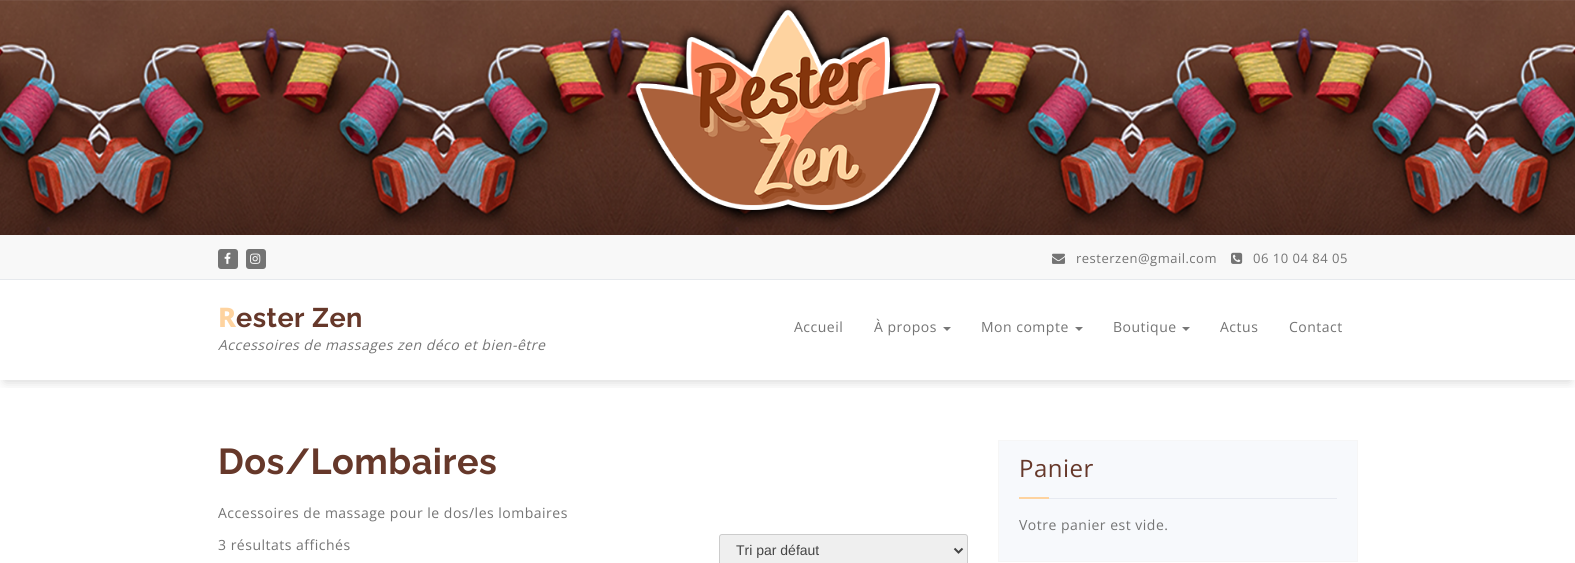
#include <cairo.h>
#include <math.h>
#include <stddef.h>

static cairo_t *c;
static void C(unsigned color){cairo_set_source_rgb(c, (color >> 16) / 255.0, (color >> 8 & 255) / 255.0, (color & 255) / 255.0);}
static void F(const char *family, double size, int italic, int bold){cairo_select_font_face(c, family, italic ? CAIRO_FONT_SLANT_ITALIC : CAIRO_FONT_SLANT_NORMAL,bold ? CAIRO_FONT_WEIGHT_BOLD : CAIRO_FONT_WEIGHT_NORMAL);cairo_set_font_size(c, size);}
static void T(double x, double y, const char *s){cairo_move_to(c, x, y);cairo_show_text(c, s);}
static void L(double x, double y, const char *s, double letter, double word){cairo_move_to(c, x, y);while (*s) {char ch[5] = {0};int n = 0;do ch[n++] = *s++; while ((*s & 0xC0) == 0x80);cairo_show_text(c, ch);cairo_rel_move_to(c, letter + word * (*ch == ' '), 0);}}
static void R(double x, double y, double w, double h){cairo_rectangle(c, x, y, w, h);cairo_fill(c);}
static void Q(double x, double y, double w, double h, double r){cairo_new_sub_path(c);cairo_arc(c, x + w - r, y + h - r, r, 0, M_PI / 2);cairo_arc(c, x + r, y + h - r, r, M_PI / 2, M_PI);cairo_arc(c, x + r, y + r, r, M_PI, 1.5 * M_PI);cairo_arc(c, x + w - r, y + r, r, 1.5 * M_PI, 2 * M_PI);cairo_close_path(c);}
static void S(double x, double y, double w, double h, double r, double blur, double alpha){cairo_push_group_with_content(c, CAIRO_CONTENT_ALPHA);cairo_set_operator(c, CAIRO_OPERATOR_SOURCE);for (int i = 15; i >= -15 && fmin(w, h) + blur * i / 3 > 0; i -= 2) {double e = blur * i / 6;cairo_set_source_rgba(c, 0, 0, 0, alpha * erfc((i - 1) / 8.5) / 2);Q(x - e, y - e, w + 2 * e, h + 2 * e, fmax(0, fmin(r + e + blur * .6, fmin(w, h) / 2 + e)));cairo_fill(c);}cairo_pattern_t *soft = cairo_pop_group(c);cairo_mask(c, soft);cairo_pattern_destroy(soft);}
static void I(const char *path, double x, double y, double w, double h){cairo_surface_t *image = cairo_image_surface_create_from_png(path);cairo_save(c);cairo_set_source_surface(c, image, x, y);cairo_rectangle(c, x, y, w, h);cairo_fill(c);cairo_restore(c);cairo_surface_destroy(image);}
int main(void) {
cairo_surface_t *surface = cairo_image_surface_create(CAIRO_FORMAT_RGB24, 1575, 563);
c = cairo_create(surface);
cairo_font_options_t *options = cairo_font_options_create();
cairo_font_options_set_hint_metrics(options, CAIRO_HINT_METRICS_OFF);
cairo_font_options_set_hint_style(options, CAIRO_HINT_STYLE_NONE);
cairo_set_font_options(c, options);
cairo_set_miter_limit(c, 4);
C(0xffffff);
cairo_paint(c);
I("1.png",0,0,1575,235);
C(0xf8f8f8);
R(0,235,1575,44);
C(0xe6e9ed);
R(0,279,1575,1);
C(0x747474);
Q(218,249,20,20,3);
cairo_fill(c);
I("2.png",224,252,7,12);
Q(246,249,20,20,3);
cairo_fill(c);
I("3.png",250,253,11,11);
I("4.png",1052,253,13,11);
F("Open Sans",13,0,0);
L(1076,263,"resterzen@gmail.com",.5,0);
I("5.png",1231,252,12,12);
L(1253,263,"06 10 04 84 05",.5,0);
cairo_save(c);
cairo_rectangle(c,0,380,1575,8);
cairo_clip(c);
C(0x000000);
S(5,291,1565,90,0,6,.18);
cairo_restore(c);
F("Noto Sans ExtraBold",27,0,0);
C(0xfed39f);
L(218,327,"R",.5,0);
F("Raleway",27,0,1);
C(0x66382a);
L(236,327,"ester Zen",.5,0);
F("Open Sans",14,1,0);
C(0x747474);
L(218,350,"Accessoires de massages zen déco et bien-être",.5,0);
F("Open Sans",14,0,0);
L(794,332,"Accueil",.5,0);
L(874,332,"À propos",.5,0);
C(0x777777);
cairo_new_path(c);
cairo_move_to(c,943,327);
cairo_line_to(c,951,327);
cairo_line_to(c,947,331);
cairo_close_path(c);
cairo_fill(c);
C(0x747474);
L(981,332,"Mon compte",.5,0);
C(0x777777);
cairo_new_path(c);
cairo_move_to(c,1075,327);
cairo_line_to(c,1083,327);
cairo_line_to(c,1079,331);
cairo_close_path(c);
cairo_fill(c);
C(0x747474);
L(1113,332,"Boutique",.5,0);
C(0x777777);
cairo_new_path(c);
cairo_move_to(c,1182,327);
cairo_line_to(c,1190,327);
cairo_line_to(c,1186,331);
cairo_close_path(c);
cairo_fill(c);
C(0x747474);
L(1220,332,"Actus",.5,0);
L(1289,332,"Contact",.5,0);
F("Raleway",36,0,1);
C(0x66382a);
L(218,474,"Dos/Lombaires",.5,0);
F("Open Sans",14,0,0);
C(0x747474);
L(218,518,"Accessoires de massage pour le dos/les lombaires",.5,0);
L(218,550,"3 résultats affichés",.5,0);
C(0xefefef);
Q(719.5,534.5,248,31,2.5);
cairo_fill_preserve(c);
C(0xcccccc);
cairo_set_line_width(c,1);
cairo_stroke(c);
cairo_new_path(c);
cairo_move_to(c,954.5,548.5);
cairo_line_to(c,958.5,552.5);
cairo_line_to(c,962.5,548.5);
C(0x444444);
cairo_set_line_width(c,2);
cairo_stroke(c);
F("Liberation Sans",14,0,0);
T(736,555,"Tri par défaut");
C(0xf7f9fc);
cairo_rectangle(c,998.5,440.5,359,121);
cairo_fill_preserve(c);
C(0xf6f6f6);
cairo_set_line_width(c,1);
cairo_stroke(c);
C(0xe7eaf1);
R(1049,498,288,1);
F("Open Sans",24,0,0);
C(0x66382a);
L(1019,477,"Panier",.5,0);
C(0xfed39f);
R(1019,497,30,2);
F("Open Sans",14,0,0);
C(0x747474);
L(1019,530,"Votre panier est vide.",.5,0);
cairo_surface_write_to_png(surface, "o.png");
cairo_font_options_destroy(options);
cairo_destroy(c);
cairo_surface_destroy(surface);
return 0;
}
